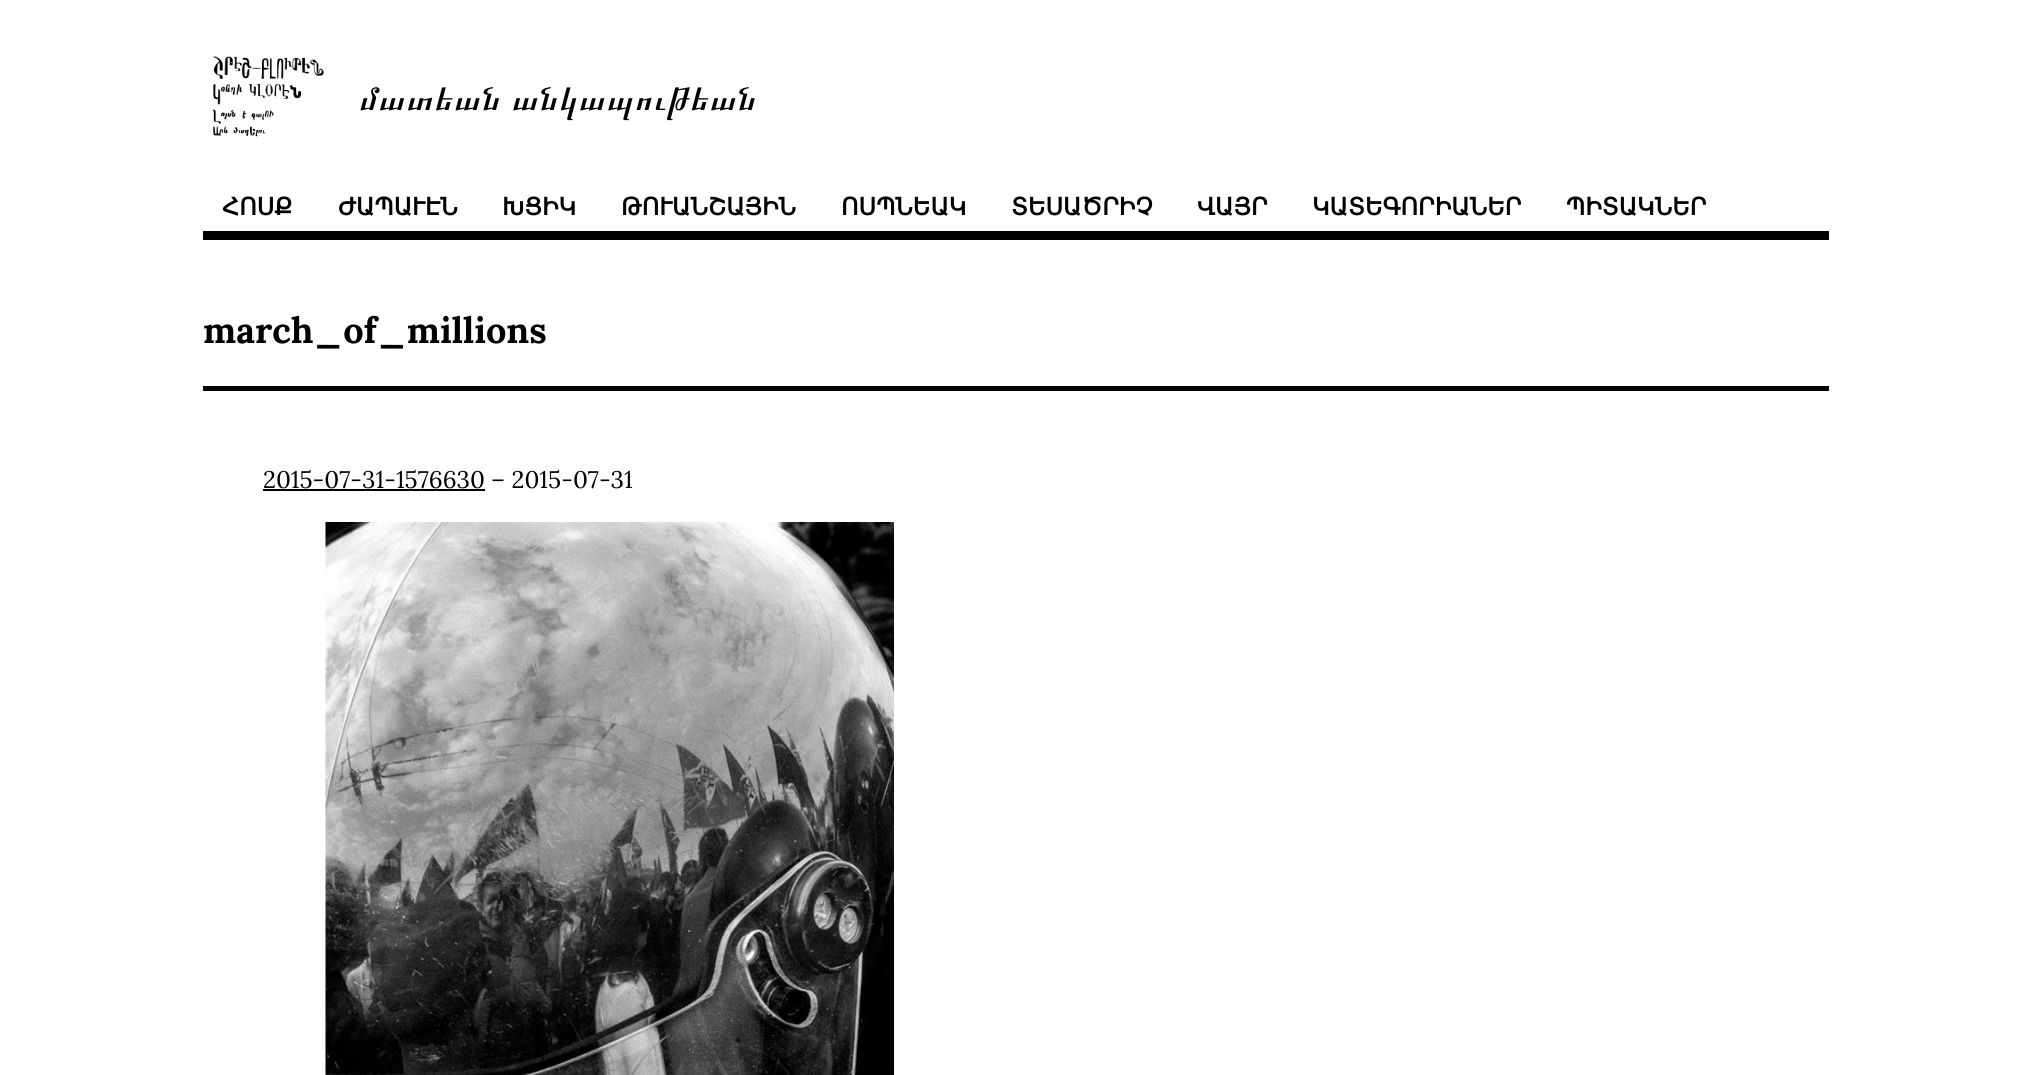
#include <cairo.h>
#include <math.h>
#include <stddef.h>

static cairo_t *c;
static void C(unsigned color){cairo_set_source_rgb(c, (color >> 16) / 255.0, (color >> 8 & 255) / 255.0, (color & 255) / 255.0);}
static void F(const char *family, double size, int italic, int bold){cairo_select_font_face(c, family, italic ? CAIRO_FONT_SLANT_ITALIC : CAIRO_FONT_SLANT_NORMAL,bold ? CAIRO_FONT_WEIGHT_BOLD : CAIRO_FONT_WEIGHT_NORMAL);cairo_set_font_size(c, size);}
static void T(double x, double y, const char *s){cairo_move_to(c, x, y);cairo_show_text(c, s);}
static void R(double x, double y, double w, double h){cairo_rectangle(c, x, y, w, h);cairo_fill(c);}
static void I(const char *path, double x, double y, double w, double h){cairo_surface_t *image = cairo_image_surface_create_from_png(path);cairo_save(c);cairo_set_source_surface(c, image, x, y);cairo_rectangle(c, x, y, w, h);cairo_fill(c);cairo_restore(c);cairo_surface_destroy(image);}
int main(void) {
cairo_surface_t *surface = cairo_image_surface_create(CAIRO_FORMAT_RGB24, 2030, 1075);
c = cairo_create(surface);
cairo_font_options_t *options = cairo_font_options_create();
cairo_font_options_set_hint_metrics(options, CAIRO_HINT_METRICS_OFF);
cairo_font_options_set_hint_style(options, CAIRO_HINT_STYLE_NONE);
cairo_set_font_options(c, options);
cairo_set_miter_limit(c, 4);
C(0xffffff);
cairo_paint(c);
I("1.png",212,56,112,81);
F("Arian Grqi",36,0,0);
C(0x000000);
T(359,110,"մատեան անկապութեան");
F("DejaVu Sans",24,0,1);
T(222,215,"ՀՈՍՔ");
T(338,215,"ԺԱՊԱՒԷՆ");
T(502,215,"ԽՑԻԿ");
T(621,215,"ԹՈՒԱՆՇԱՅԻՆ");
T(841,215,"ՈՍՊՆԵԱԿ");
T(1011,215,"ՏԵՍԱԾՐԻՉ");
T(1197,215,"ՎԱՅՐ");
T(1312,215,"ԿԱՏԵԳՈՐԻԱՆԵՐ");
T(1566,215,"ՊԻՏԱԿՆԵՐ");
R(203,231,1626,9);
F("Lora",36,0,1);
T(203,343,"march_of_millions");
R(203,386,1626,5);
F("Lora",24,0,0);
T(263,488,"2015-07-31-1576630 – 2015-07-31");
R(263,489,222,2);
I("2.png",325,522,569,553);
cairo_surface_write_to_png(surface, "o.png");
cairo_font_options_destroy(options);
cairo_destroy(c);
cairo_surface_destroy(surface);
return 0;
}
